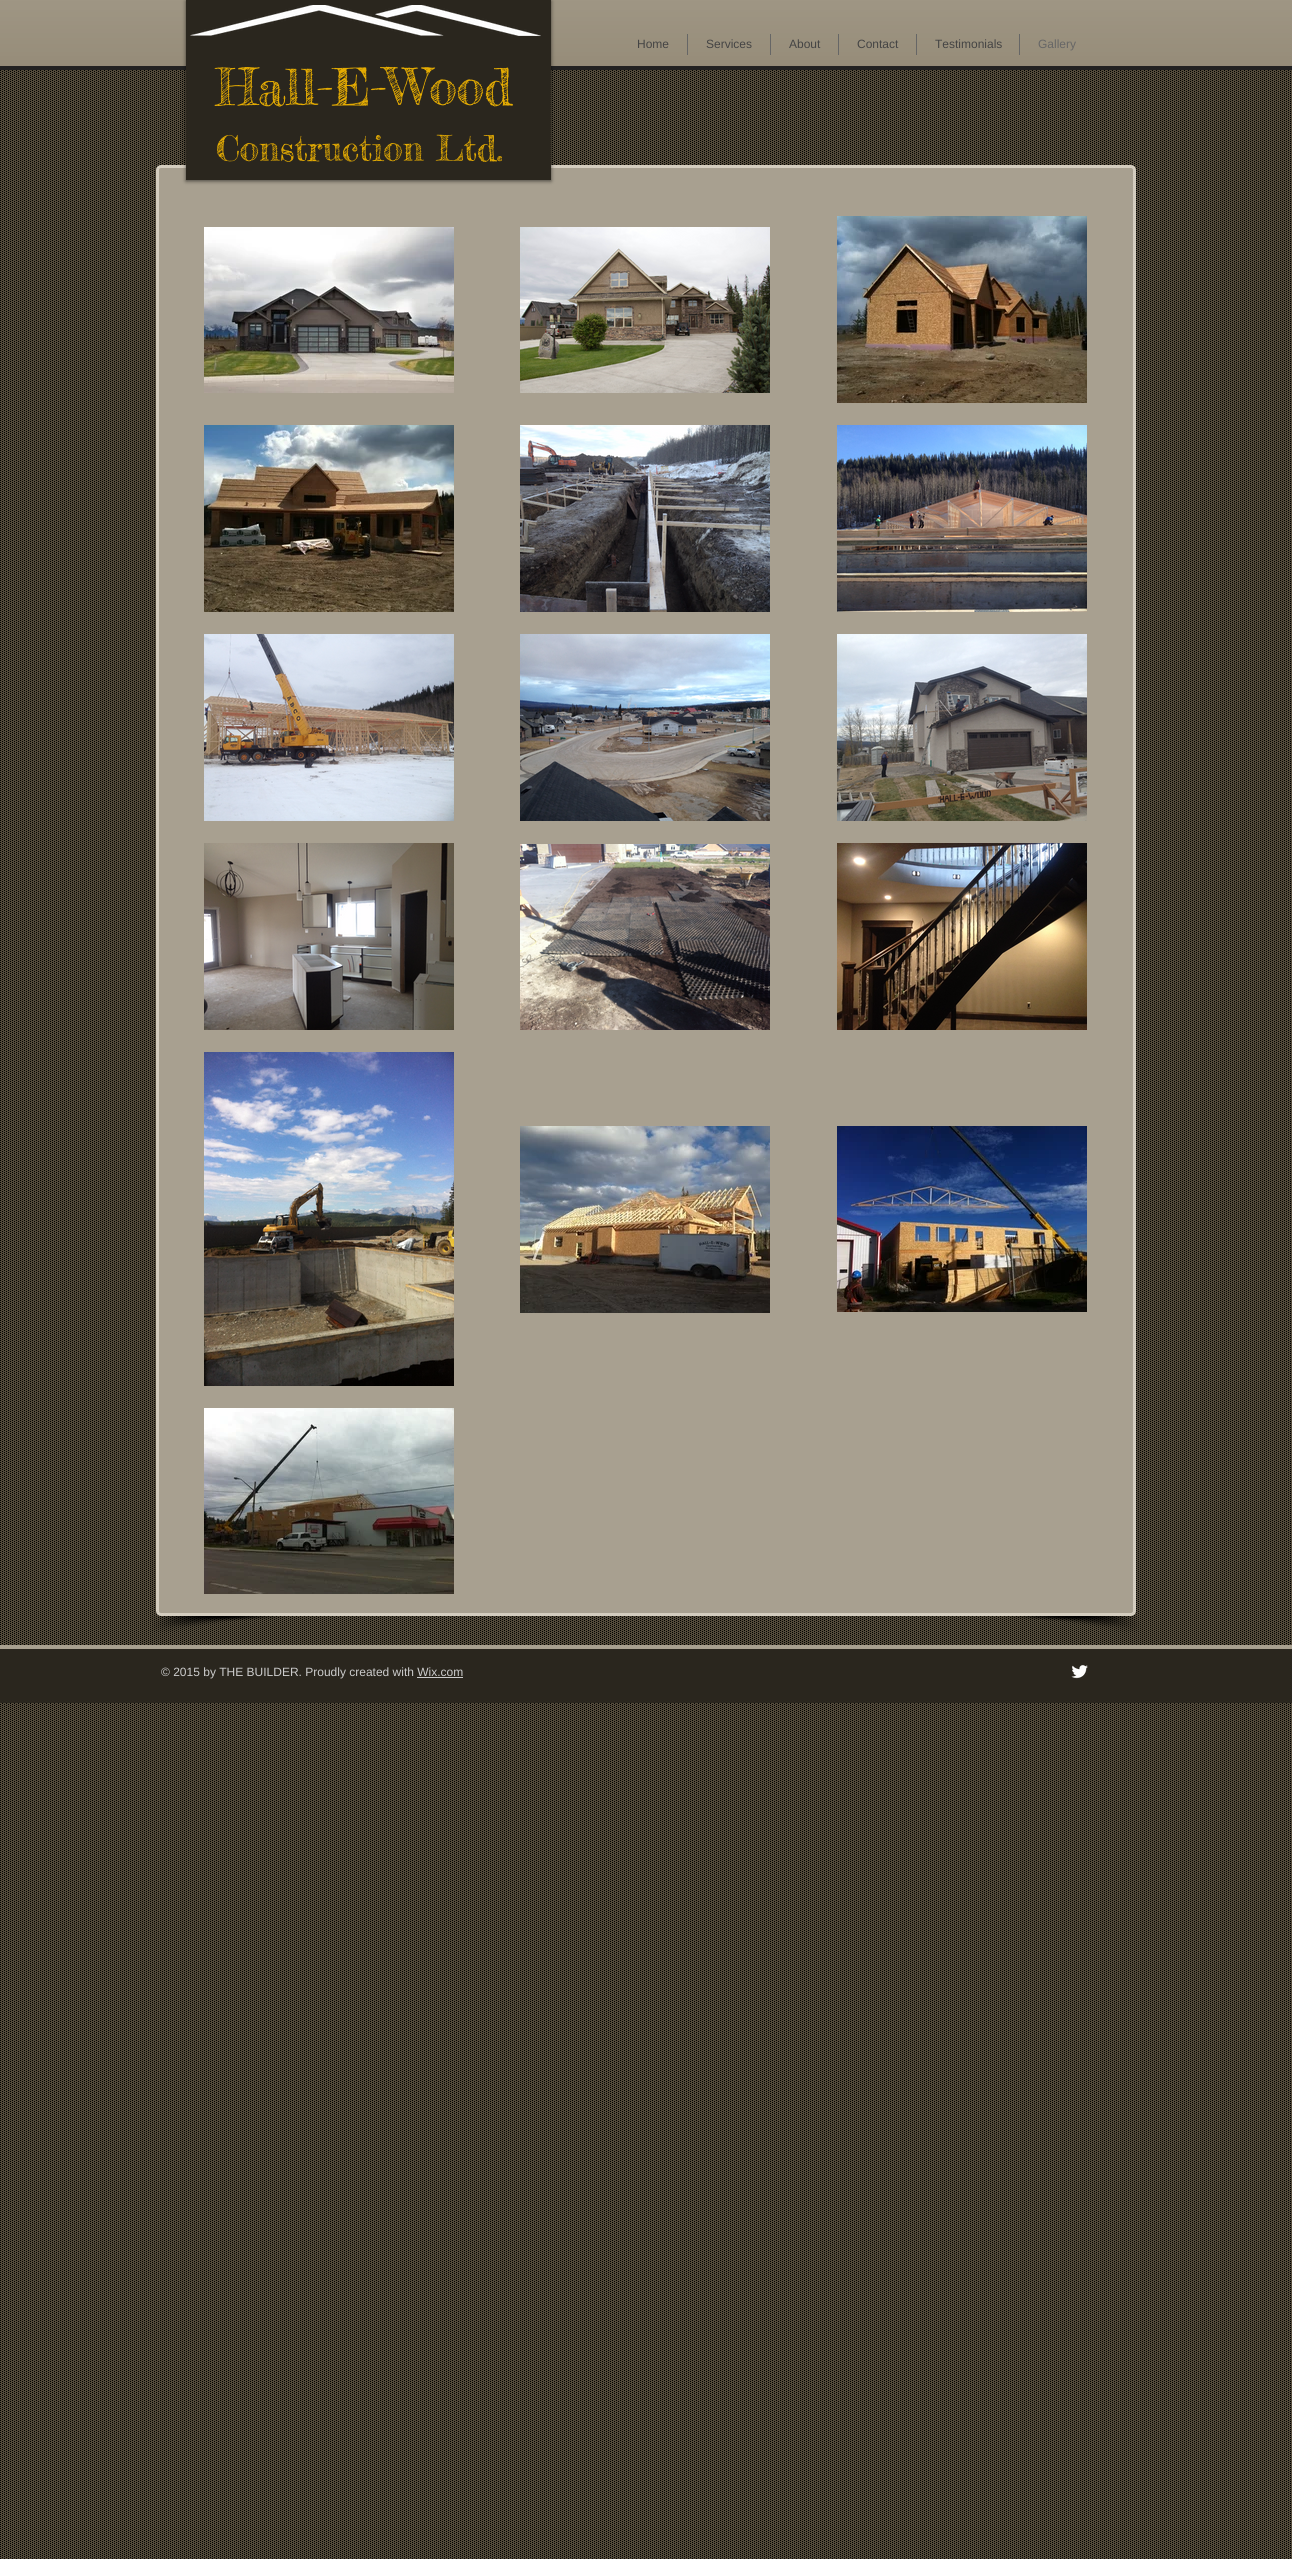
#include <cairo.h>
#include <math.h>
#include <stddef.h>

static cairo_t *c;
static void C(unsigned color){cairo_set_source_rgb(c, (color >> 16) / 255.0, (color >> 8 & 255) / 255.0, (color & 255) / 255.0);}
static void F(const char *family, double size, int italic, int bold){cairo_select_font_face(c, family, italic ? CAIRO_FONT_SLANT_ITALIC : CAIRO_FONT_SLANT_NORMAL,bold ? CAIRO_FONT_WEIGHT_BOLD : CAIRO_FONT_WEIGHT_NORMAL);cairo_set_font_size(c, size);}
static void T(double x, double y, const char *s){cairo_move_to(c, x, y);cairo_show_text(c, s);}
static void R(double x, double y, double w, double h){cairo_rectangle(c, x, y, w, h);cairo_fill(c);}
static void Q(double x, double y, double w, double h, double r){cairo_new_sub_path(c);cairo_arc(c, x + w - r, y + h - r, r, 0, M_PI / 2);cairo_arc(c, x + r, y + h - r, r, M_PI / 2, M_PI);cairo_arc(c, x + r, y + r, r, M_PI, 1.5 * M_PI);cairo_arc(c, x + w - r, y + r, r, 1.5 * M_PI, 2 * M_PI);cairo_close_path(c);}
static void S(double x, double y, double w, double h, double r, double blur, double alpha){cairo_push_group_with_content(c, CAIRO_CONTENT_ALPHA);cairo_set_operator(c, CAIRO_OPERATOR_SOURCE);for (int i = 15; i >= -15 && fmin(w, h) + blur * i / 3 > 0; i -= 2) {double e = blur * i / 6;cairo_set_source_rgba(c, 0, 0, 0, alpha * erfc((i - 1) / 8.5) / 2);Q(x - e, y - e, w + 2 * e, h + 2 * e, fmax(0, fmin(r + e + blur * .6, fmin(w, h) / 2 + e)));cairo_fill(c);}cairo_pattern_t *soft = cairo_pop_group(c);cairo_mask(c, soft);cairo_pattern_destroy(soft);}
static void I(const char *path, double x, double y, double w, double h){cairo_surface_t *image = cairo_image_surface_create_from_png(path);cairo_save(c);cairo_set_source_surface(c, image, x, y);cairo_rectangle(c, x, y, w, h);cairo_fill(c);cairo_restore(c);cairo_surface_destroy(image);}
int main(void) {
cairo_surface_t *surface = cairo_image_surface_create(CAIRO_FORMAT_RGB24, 1292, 2559);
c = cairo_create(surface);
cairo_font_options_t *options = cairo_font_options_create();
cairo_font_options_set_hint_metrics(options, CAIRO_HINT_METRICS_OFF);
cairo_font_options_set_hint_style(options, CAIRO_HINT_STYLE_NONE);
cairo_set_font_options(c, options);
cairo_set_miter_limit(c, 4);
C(0x534b3b);
cairo_paint(c);
C(0x7d7159);
R(0,0,1292,66);
C(0x222222);
R(0,66,1292,4);
I("1.png",0,0,1292,66);
F("Liberation Sans",12,0,0);
C(0x444444);
T(637,48,"Home");
C(0x666666);
R(687,34,1,21);
C(0x444444);
T(706,48,"Services");
C(0x666666);
R(770,34,1,21);
C(0x444444);
T(789,48,"About");
C(0x666666);
R(838,34,1,21);
C(0x444444);
T(857,48,"Contact");
C(0x666666);
R(916,34,1,21);
C(0x444444);
T(935,48,"Testimonials");
C(0x666666);
R(1019,34,1,21);
T(1038,48,"Gallery");
I("22.png",0,70,1291,2489);
C(0xa8a090);
Q(157.5,166.5,977,1448,3.5);
cairo_fill_preserve(c);
C(0xd4cdbf);
cairo_set_line_width(c,3);
cairo_stroke(c);
C(0x000000);
S(186,1,365,180,0,2,.6);
C(0x2a261e);
R(186,0,365,180);
I("2.png",190,5,351,32);
F("Fredericka the Great",50,0,0);
C(0xe5ac02);
T(216,105,"Hall-E-Wood");
F("Fredericka the Great",35,0,0);
T(216,161,"Construction Ltd.");
I("3.png",152,1616,136,16);
I("4.png",1005,1616,135,16);
I("5.png",204,227,250,166);
I("6.png",520,227,250,166);
I("7.png",837,216,250,187);
I("8.png",204,425,250,187);
I("9.png",520,425,250,187);
I("10.png",837,425,250,187);
I("11.png",204,634,250,187);
I("12.png",520,634,250,187);
I("13.png",837,634,250,187);
I("14.png",204,843,250,187);
I("15.png",520,844,250,186);
I("16.png",837,843,250,187);
I("17.png",204,1052,250,334);
I("18.png",520,1126,250,187);
I("19.png",837,1126,250,186);
I("20.png",204,1408,250,186);
C(0x2a261e);
R(0,1649,1292,54);
C(0xa8a090);
R(0,1645,1292,4);
F("Liberation Sans",12,0,0);
C(0xcccccc);
T(161,1676,"© 2015 by THE BUILDER. Proudly created with Wix.com");
R(417,1677,46,1);
I("21.png",1071,1665,17,14);
cairo_surface_write_to_png(surface, "o.png");
cairo_font_options_destroy(options);
cairo_destroy(c);
cairo_surface_destroy(surface);
return 0;
}
